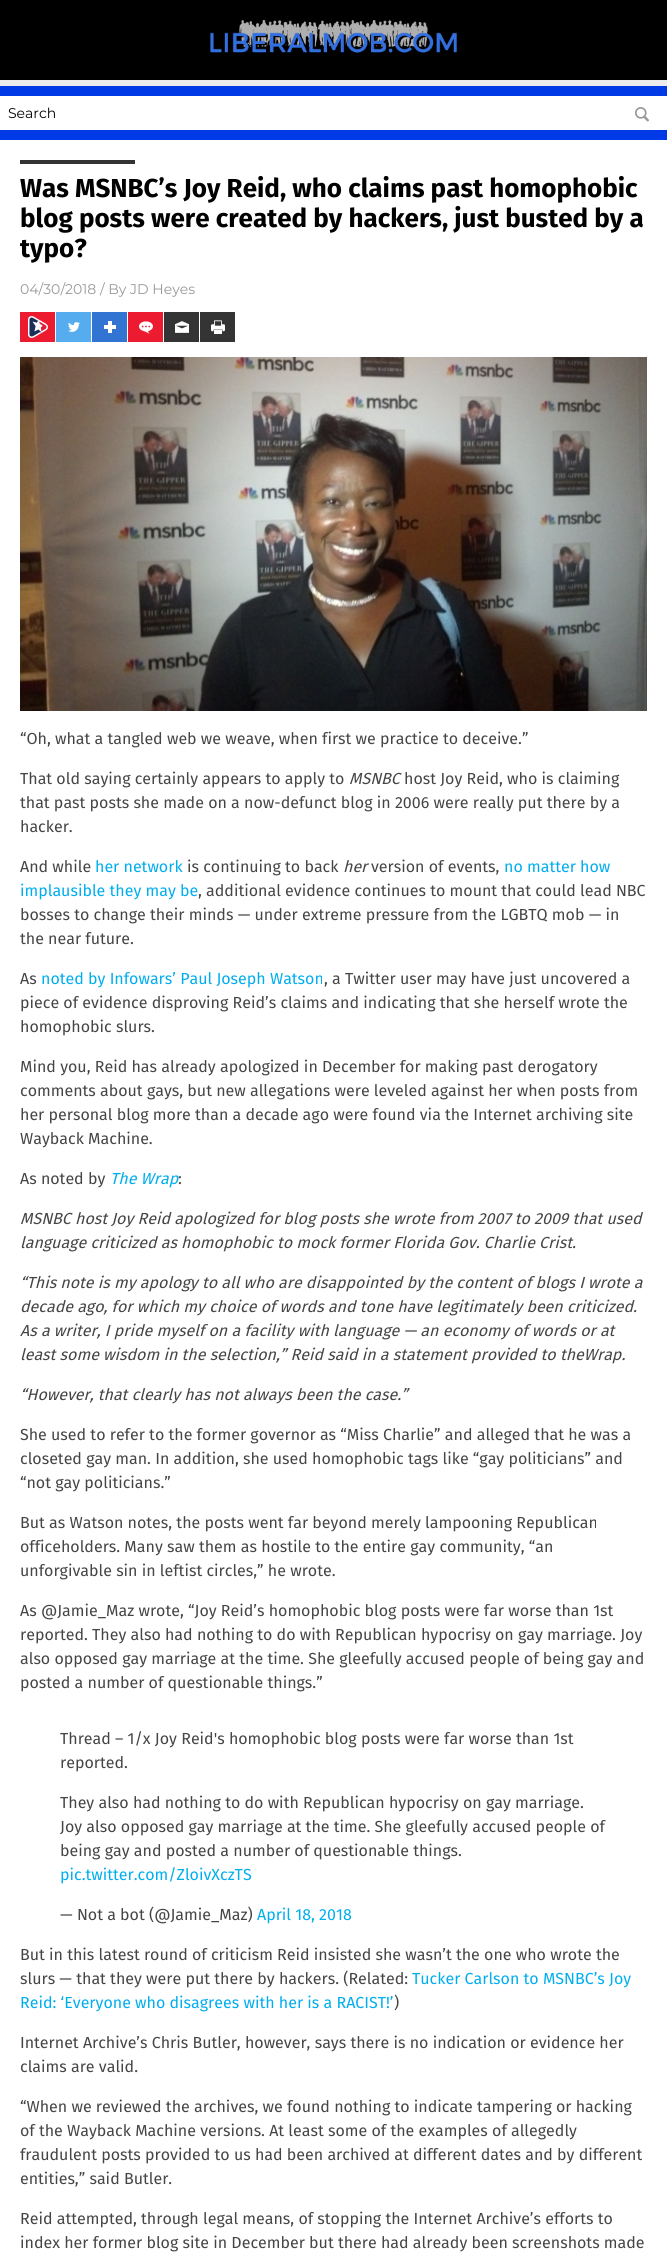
#include <cairo.h>
#include <math.h>
#include <stddef.h>

static cairo_t *c;
static void C(unsigned color){cairo_set_source_rgb(c, (color >> 16) / 255.0, (color >> 8 & 255) / 255.0, (color & 255) / 255.0);}
static void F(const char *family, double size, int italic, int bold){cairo_select_font_face(c, family, italic ? CAIRO_FONT_SLANT_ITALIC : CAIRO_FONT_SLANT_NORMAL,bold ? CAIRO_FONT_WEIGHT_BOLD : CAIRO_FONT_WEIGHT_NORMAL);cairo_set_font_size(c, size);}
static void T(double x, double y, const char *s){cairo_move_to(c, x, y);cairo_show_text(c, s);}
static void R(double x, double y, double w, double h){cairo_rectangle(c, x, y, w, h);cairo_fill(c);}
static void I(const char *path, double x, double y, double w, double h){cairo_surface_t *image = cairo_image_surface_create_from_png(path);cairo_save(c);cairo_set_source_surface(c, image, x, y);cairo_rectangle(c, x, y, w, h);cairo_fill(c);cairo_restore(c);cairo_surface_destroy(image);}
int main(void) {
cairo_surface_t *surface = cairo_image_surface_create(CAIRO_FORMAT_RGB24, 667, 2254);
c = cairo_create(surface);
cairo_font_options_t *options = cairo_font_options_create();
cairo_font_options_set_hint_metrics(options, CAIRO_HINT_METRICS_OFF);
cairo_font_options_set_hint_style(options, CAIRO_HINT_STYLE_NONE);
cairo_set_font_options(c, options);
cairo_set_miter_limit(c, 4);
C(0x0039e6);
cairo_paint(c);
C(0x000000);
R(0,0,667,80);
I("1.png",210,20,247,33);
C(0xececec);
R(0,80,667,6);
C(0xffffff);
R(0,96,667,34);
F("Montserrat",14,0,0);
C(0x000000);
T(8,118,"Search");
I("2.png",635,107,14,15);
C(0xffffff);
R(0,140,667,2114);
C(0x333333);
R(20,160,115,4);
F("Fira Sans",26,0,1);
C(0x000000);
T(20,197,"Was MSNBC’s Joy Reid, who claims past homophobic");
T(20,227,"blog posts were created by hackers, just busted by a");
T(20,257,"typo?");
F("Montserrat",14,0,0);
C(0x999999);
T(20,294,"04/30/2018 / By JD Heyes");
C(0xed1b2f);
R(20,312,35,30);
I("3.png",28,316,20,22);
C(0x55acef);
R(56,312,35,30);
I("4.png",68,322,12,10);
C(0x3274d1);
R(92,312,35,30);
I("5.png",104,321,12,12);
C(0xed1b2f);
R(128,312,35,30);
I("6.png",139,321,14,13);
C(0x343434);
R(164,312,35,30);
I("7.png",175,321,14,12);
R(200,312,35,30);
I("8.png",211,320,14,14);
I("9.png",20,357,627,354);
F("Fira Sans",16,0,0);
C(0x454545);
T(20,744,"“Oh, what a tangled web we weave, when first we practice to deceive.”");
T(20,784,"That old saying certainly appears to apply to");
F("Fira Sans",16,1,0);
T(349,784,"MSNBC");
F("Fira Sans",16,0,0);
T(404,784,"host Joy Reid, who is claiming");
T(20,808,"that past posts she made on a now-defunct blog in 2006 were really put there by a");
T(20,832,"hacker.");
T(20,872,"And while");
C(0x00aeef);
T(95,872,"her network");
C(0x454545);
T(187,872,"is continuing to back");
F("Fira Sans",16,1,0);
T(343,872,"her");
F("Fira Sans",16,0,0);
T(371,872,"version of events,");
C(0x00aeef);
T(504,872,"no matter how");
T(20,896,"implausible they may be");
C(0x454545);
T(198,896,", additional evidence continues to mount that could lead NBC");
T(20,920,"bosses to change their minds — under extreme pressure from the LGBTQ mob — in");
T(20,944,"the near future.");
T(20,984,"As");
C(0x00aeef);
T(41,984,"noted by Infowars’ Paul Joseph Watson");
C(0x454545);
T(324,984,", a Twitter user may have just uncovered a");
T(20,1008,"piece of evidence disproving Reid’s claims and indicating that she herself wrote the");
T(20,1032,"homophobic slurs.");
T(20,1072,"Mind you, Reid has already apologized in December for making past derogatory");
T(20,1096,"comments about gays, but new allegations were leveled against her when posts from");
T(20,1120,"her personal blog more than a decade ago were found via the Internet archiving site");
T(20,1144,"Wayback Machine.");
T(20,1184,"As noted by");
F("Fira Sans",16,1,0);
C(0x00aeef);
T(110,1184,"The Wrap");
F("Fira Sans",16,0,0);
C(0x454545);
T(178,1184,":");
F("Fira Sans",16,1,0);
T(20,1224,"MSNBC host Joy Reid apologized for blog posts she wrote from 2007 to 2009 that used");
T(20,1248,"language criticized as homophobic to mock former Florida Gov. Charlie Crist.");
T(20,1288,"“This note is my apology to all who are disappointed by the content of blogs I wrote a");
T(20,1312,"decade ago, for which my choice of words and tone have legitimately been criticized.");
T(20,1336,"As a writer, I pride myself on a facility with language — an economy of words or at");
T(20,1360,"least some wisdom in the selection,” Reid said in a statement provided to theWrap.");
T(20,1400,"“However, that clearly has not always been the case.”");
F("Fira Sans",16,0,0);
T(20,1440,"She used to refer to the former governor as “Miss Charlie” and alleged that he was a");
T(20,1464,"closeted gay man. In addition, she used homophobic tags like “gay politicians” and");
T(20,1488,"“not gay politicians.”");
T(20,1528,"But as Watson notes, the posts went far beyond merely lampooning Republican");
T(20,1552,"officeholders. Many saw them as hostile to the entire gay community, “an");
T(20,1576,"unforgivable sin in leftist circles,” he wrote.");
T(20,1616,"As @Jamie_Maz wrote, “Joy Reid’s homophobic blog posts were far worse than 1st");
T(20,1640,"reported. They also had nothing to do with Republican hypocrisy on gay marriage. Joy");
T(20,1664,"also opposed gay marriage at the time. She gleefully accused people of being gay and");
T(20,1688,"posted a number of questionable things.”");
T(60,1744,"Thread – 1/x Joy Reid's homophobic blog posts were far worse than 1st");
T(60,1768,"reported.");
T(60,1808,"They also had nothing to do with Republican hypocrisy on gay marriage.");
T(60,1832,"Joy also opposed gay marriage at the time. She gleefully accused people of");
T(60,1856,"being gay and posted a number of questionable things.");
C(0x00aeef);
T(60,1880,"pic.twitter.com/ZloivXczTS");
C(0x454545);
T(60,1920,"— Not a bot (@Jamie_Maz)");
C(0x00aeef);
T(257,1920,"April 18, 2018");
C(0x454545);
T(20,1960,"But in this latest round of criticism Reid insisted she wasn’t the one who wrote the");
T(20,1984,"slurs — that they were put there by hackers. (Related:");
C(0x00aeef);
T(412,1984,"Tucker Carlson to MSNBC’s Joy");
T(20,2008,"Reid: ‘Everyone who disagrees with her is a RACIST!’");
C(0x454545);
T(394,2008,")");
T(20,2048,"Internet Archive’s Chris Butler, however, says there is no indication or evidence her");
T(20,2072,"claims are valid.");
T(20,2112,"“When we reviewed the archives, we found nothing to indicate tampering or hacking");
T(20,2136,"of the Wayback Machine versions. At least some of the examples of allegedly");
T(20,2160,"fraudulent posts provided to us had been archived at different dates and by different");
T(20,2184,"entities,” said Butler.");
T(20,2224,"Reid attempted, through legal means, of stopping the Internet Archive’s efforts to");
T(20,2248,"index her former blog site in December but there had already been screenshots made");
cairo_surface_write_to_png(surface, "o.png");
cairo_font_options_destroy(options);
cairo_destroy(c);
cairo_surface_destroy(surface);
return 0;
}
